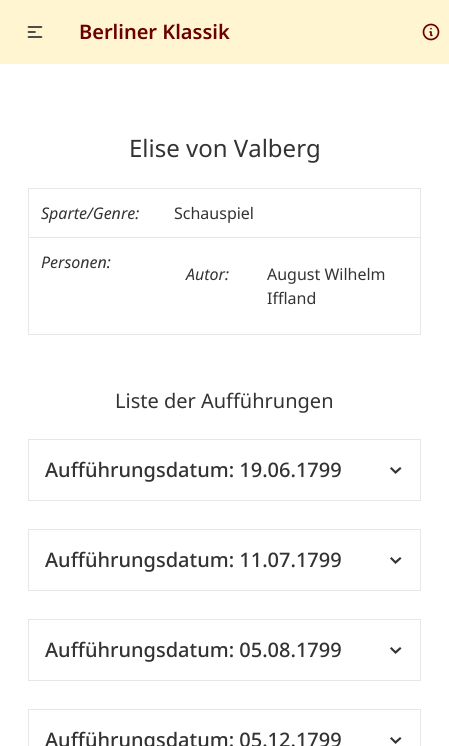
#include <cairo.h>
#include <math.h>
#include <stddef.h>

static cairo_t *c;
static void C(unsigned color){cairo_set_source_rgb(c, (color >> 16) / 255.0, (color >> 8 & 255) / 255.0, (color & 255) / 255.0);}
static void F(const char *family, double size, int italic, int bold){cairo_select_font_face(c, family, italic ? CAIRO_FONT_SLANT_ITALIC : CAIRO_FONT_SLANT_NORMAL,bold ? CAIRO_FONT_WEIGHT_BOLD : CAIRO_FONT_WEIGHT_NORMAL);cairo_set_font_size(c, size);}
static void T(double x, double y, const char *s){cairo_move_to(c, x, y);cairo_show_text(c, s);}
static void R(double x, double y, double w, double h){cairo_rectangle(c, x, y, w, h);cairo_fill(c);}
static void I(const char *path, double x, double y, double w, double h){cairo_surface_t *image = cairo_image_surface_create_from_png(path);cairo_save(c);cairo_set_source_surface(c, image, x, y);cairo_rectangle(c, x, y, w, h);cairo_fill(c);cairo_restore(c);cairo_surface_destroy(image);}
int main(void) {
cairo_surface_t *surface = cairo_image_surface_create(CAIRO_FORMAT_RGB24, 449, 746);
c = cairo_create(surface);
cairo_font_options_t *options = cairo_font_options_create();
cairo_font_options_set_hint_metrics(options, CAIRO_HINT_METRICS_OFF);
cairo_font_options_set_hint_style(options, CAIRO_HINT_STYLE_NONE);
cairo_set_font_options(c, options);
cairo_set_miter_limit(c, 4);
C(0xffffff);
cairo_paint(c);
C(0xfff5d1);
R(0,0,449,64);
cairo_new_path(c);
cairo_move_to(c,28.5,27);
cairo_line_to(c,41.5,27);
cairo_move_to(c,28.5,32);
cairo_line_to(c,35,32);
cairo_move_to(c,28.5,37);
cairo_line_to(c,41.5,37);
C(0x333333);
cairo_set_line_width(c,1.7);
cairo_set_line_cap(c,CAIRO_LINE_CAP_ROUND);
cairo_set_line_join(c,CAIRO_LINE_JOIN_ROUND);
cairo_stroke(c);
F("Noto Sans SemiBold",20,0,0);
C(0x6b0000);
T(79,39,"Berliner Klassik");
I("1.png",422,23,18,18);
F("Noto Sans",24,0,0);
C(0x333333);
T(129,157,"Elise von Valberg");
cairo_rectangle(c,28.5,188.5,392,146);
C(0xe5e7eb);
cairo_set_line_width(c,1);
cairo_set_line_cap(c,CAIRO_LINE_CAP_BUTT);
cairo_set_line_join(c,CAIRO_LINE_JOIN_MITER);
cairo_stroke(c);
R(29,237,391,1);
F("Noto Sans",16,1,0);
C(0x333333);
T(41,219,"Sparte/Genre:");
F("Noto Sans",16,0,0);
T(174,219,"Schauspiel");
F("Noto Sans",16,1,0);
T(41,268,"Personen:");
T(186,280,"Autor:");
F("Noto Sans",16,0,0);
T(267,280,"August Wilhelm");
T(267,304,"Iffland");
F("Noto Sans",20,0,0);
T(115,408,"Liste der Aufführungen");
cairo_rectangle(c,28.5,439.5,392,61);
C(0xe5e7eb);
cairo_stroke(c);
F("Noto Sans Medium",20,0,0);
C(0x333333);
T(45,477,"Aufführungsdatum: 19.06.1799");
cairo_new_path(c);
cairo_move_to(c,391.5,467);
cairo_line_to(c,390,468.5);
cairo_line_to(c,395.5,474);
cairo_line_to(c,401.5,468.5);
cairo_line_to(c,400,467);
cairo_line_to(c,395.5,471);
cairo_close_path(c);
cairo_fill(c);
cairo_rectangle(c,28.5,529.5,392,61);
C(0xe5e7eb);
cairo_stroke(c);
C(0x333333);
T(45,567,"Aufführungsdatum: 11.07.1799");
cairo_new_path(c);
cairo_move_to(c,391.5,557);
cairo_line_to(c,390,558.5);
cairo_line_to(c,395.5,564);
cairo_line_to(c,401.5,558.5);
cairo_line_to(c,400,557);
cairo_line_to(c,395.5,561);
cairo_close_path(c);
cairo_fill(c);
cairo_rectangle(c,28.5,619.5,392,61);
C(0xe5e7eb);
cairo_stroke(c);
C(0x333333);
T(45,657,"Aufführungsdatum: 05.08.1799");
cairo_new_path(c);
cairo_move_to(c,391.5,647);
cairo_line_to(c,390,648.5);
cairo_line_to(c,395.5,654);
cairo_line_to(c,401.5,648.5);
cairo_line_to(c,400,647);
cairo_line_to(c,395.5,651);
cairo_close_path(c);
cairo_fill(c);
cairo_rectangle(c,28.5,709.5,392,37);
C(0xe5e7eb);
cairo_stroke(c);
C(0x333333);
T(45,747,"Aufführungsdatum: 05.12.1799");
cairo_new_path(c);
cairo_move_to(c,391.5,737);
cairo_line_to(c,390,738.5);
cairo_line_to(c,395.5,744);
cairo_line_to(c,401.5,738.5);
cairo_line_to(c,400,737);
cairo_line_to(c,395.5,741);
cairo_close_path(c);
cairo_fill(c);
cairo_surface_write_to_png(surface, "o.png");
cairo_font_options_destroy(options);
cairo_destroy(c);
cairo_surface_destroy(surface);
return 0;
}
